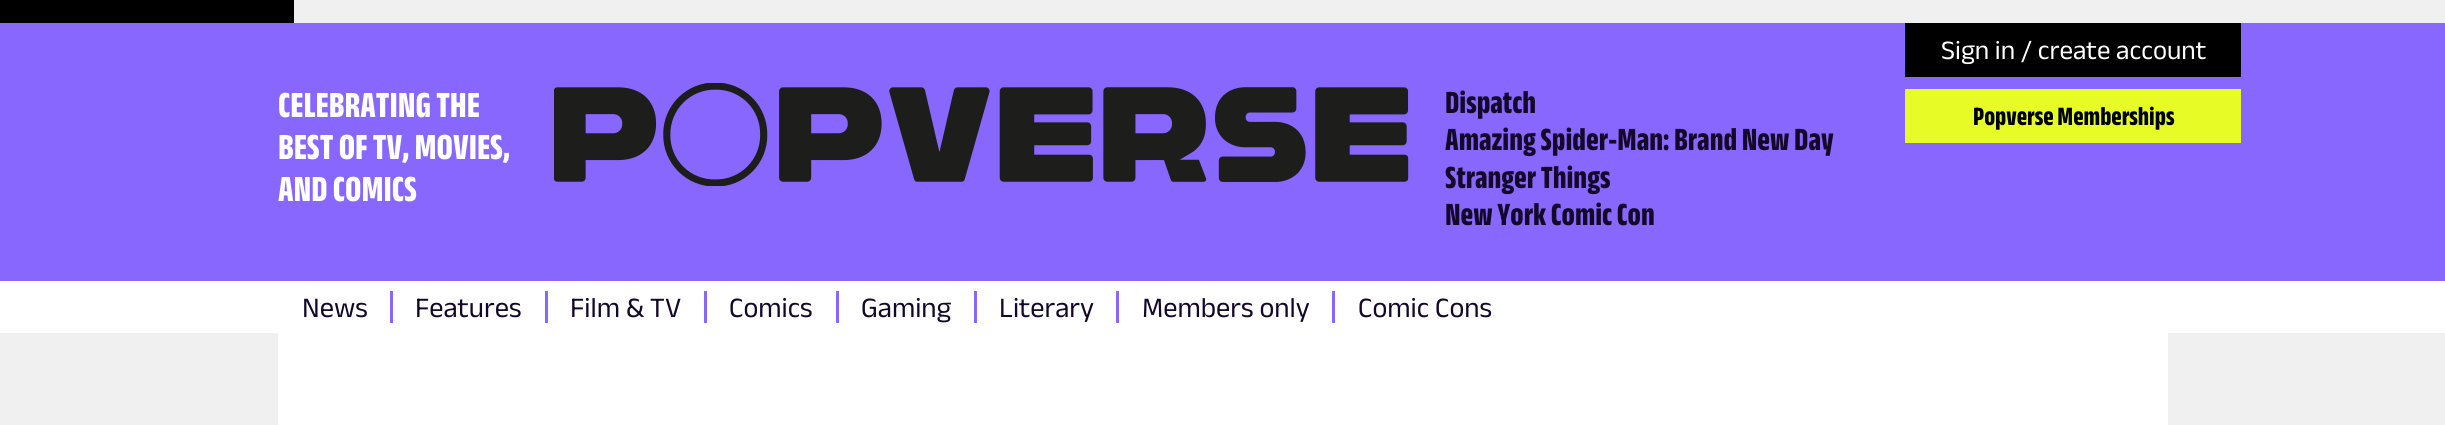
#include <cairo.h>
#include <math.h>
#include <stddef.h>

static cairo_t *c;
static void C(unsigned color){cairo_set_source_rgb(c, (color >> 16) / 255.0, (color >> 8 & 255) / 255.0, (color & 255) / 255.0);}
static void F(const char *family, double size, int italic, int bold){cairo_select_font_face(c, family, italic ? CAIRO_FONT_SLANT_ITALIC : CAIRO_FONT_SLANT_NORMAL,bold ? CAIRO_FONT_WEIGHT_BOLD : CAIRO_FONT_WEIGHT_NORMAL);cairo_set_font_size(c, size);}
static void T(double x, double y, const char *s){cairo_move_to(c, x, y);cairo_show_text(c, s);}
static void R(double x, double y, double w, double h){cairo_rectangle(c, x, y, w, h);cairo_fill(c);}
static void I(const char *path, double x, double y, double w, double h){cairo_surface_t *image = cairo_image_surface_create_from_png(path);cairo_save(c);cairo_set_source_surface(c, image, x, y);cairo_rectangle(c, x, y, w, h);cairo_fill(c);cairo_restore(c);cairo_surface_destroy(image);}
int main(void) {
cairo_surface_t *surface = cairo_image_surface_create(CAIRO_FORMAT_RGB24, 2445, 425);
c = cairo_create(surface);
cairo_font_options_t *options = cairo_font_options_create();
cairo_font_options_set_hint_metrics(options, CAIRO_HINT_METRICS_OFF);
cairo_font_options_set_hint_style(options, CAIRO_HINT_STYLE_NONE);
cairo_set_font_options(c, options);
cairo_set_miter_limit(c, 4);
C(0xf0f0f0);
cairo_paint(c);
C(0x8867ff);
R(0,23,2445,258);
C(0x000000);
R(0,0,294,23);
F("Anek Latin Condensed",37.5,0,1);
C(0xffffff);
T(278,117,"CELEBRATING THE");
T(278,159,"BEST OF TV, MOVIES,");
T(278,201,"AND COMICS");
I("1.png",554,83,855,103);
F("Anek Latin Condensed",33,0,1);
C(0x130829);
T(1445,113,"Dispatch");
T(1445,150,"Amazing Spider-Man: Brand New Day");
T(1445,188,"Stranger Things");
T(1445,225,"New York Comic Con");
C(0x000000);
R(1905,23,336,54);
F("Anek Latin",27,0,0);
C(0xffffff);
T(1941,59,"Sign in / create account");
C(0xe7fc26);
R(1905,89,336,54);
F("Anek Latin Condensed",27,0,1);
C(0x000000);
T(1973,125,"Popverse Memberships");
C(0xffffff);
R(0,281,2445,52);
F("Anek Latin",28.5,0,0);
C(0x130829);
T(302,317,"News");
C(0x8867ff);
R(390,291,3,32);
C(0x130829);
T(415,317,"Features");
C(0x8867ff);
R(545,291,3,32);
C(0x130829);
T(570,317,"Film & TV");
C(0x8867ff);
R(704,291,3,32);
C(0x130829);
T(729,317,"Comics");
C(0x8867ff);
R(836,291,3,32);
C(0x130829);
T(861,317,"Gaming");
C(0x8867ff);
R(974,291,3,32);
C(0x130829);
T(999,317,"Literary");
C(0x8867ff);
R(1116,291,3,32);
C(0x130829);
T(1142,317,"Members only");
C(0x8867ff);
R(1332,291,3,32);
C(0x130829);
T(1358,317,"Comic Cons");
C(0xffffff);
R(278,333,1890,92);
cairo_surface_write_to_png(surface, "o.png");
cairo_font_options_destroy(options);
cairo_destroy(c);
cairo_surface_destroy(surface);
return 0;
}
